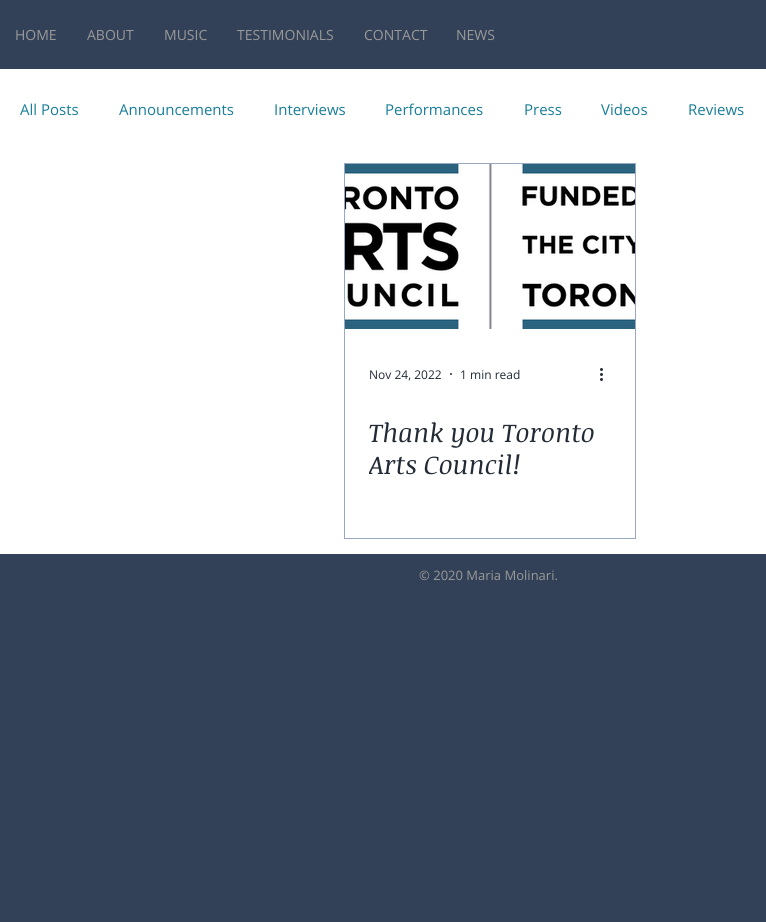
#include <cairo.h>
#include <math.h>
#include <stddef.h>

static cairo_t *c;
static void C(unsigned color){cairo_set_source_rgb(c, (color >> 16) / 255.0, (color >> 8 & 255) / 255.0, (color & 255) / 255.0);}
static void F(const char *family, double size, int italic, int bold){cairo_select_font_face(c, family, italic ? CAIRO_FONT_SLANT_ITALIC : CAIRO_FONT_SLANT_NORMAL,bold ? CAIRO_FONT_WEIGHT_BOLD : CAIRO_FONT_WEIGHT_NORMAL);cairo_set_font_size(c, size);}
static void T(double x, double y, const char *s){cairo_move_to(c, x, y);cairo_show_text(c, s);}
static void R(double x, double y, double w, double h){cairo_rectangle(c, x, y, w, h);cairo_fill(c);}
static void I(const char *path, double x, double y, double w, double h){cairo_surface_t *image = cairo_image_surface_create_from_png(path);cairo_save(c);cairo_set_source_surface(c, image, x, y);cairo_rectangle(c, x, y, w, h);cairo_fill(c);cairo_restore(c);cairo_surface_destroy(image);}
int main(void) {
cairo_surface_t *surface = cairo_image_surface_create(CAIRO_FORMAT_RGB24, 766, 922);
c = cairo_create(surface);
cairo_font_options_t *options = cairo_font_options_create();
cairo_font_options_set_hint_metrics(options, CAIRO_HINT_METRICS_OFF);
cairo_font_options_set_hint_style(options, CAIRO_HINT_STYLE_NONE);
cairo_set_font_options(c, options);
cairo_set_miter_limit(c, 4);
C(0x324157);
cairo_paint(c);
F("Open Sans",14,0,0);
C(0x999999);
T(15,40,"HOME");
T(87,40,"ABOUT");
T(164,40,"MUSIC");
T(237,40,"TESTIMONIALS");
T(364,40,"CONTACT");
T(456,40,"NEWS");
C(0xffffff);
R(0,69,766,485);
F("Open Sans",15,0,0);
C(0x187d99);
T(20,115,"All Posts");
T(119,115,"Announcements");
T(274,115,"Interviews");
T(385,115,"Performances");
T(524,115,"Press");
T(601,115,"Videos");
T(688,115,"Reviews");
cairo_rectangle(c,344.5,163.5,291,375);
C(0x97a8bf);
cairo_set_line_width(c,1);
cairo_stroke(c);
I("1.png",345,164,290,165);
F("Open Sans",12,0,0);
C(0x222a36);
T(369,379,"Nov 24, 2022");
cairo_new_path(c);
cairo_arc(c,451,374,1,0,2 * M_PI);
cairo_fill(c);
T(460,379,"1 min read");
I("2.png",600,368,3,13);
F("Noticia Text",26,1,0);
T(369,442,"Thank you Toronto");
cairo_save(c);
cairo_rectangle(c,369,416,242,64);
cairo_clip(c);
T(369,474,"Arts Council!");
cairo_restore(c);
F("Open Sans",13,0,0);
C(0x999999);
T(419,580,"© 2020 Maria Molinari.");
cairo_surface_write_to_png(surface, "o.png");
cairo_font_options_destroy(options);
cairo_destroy(c);
cairo_surface_destroy(surface);
return 0;
}
